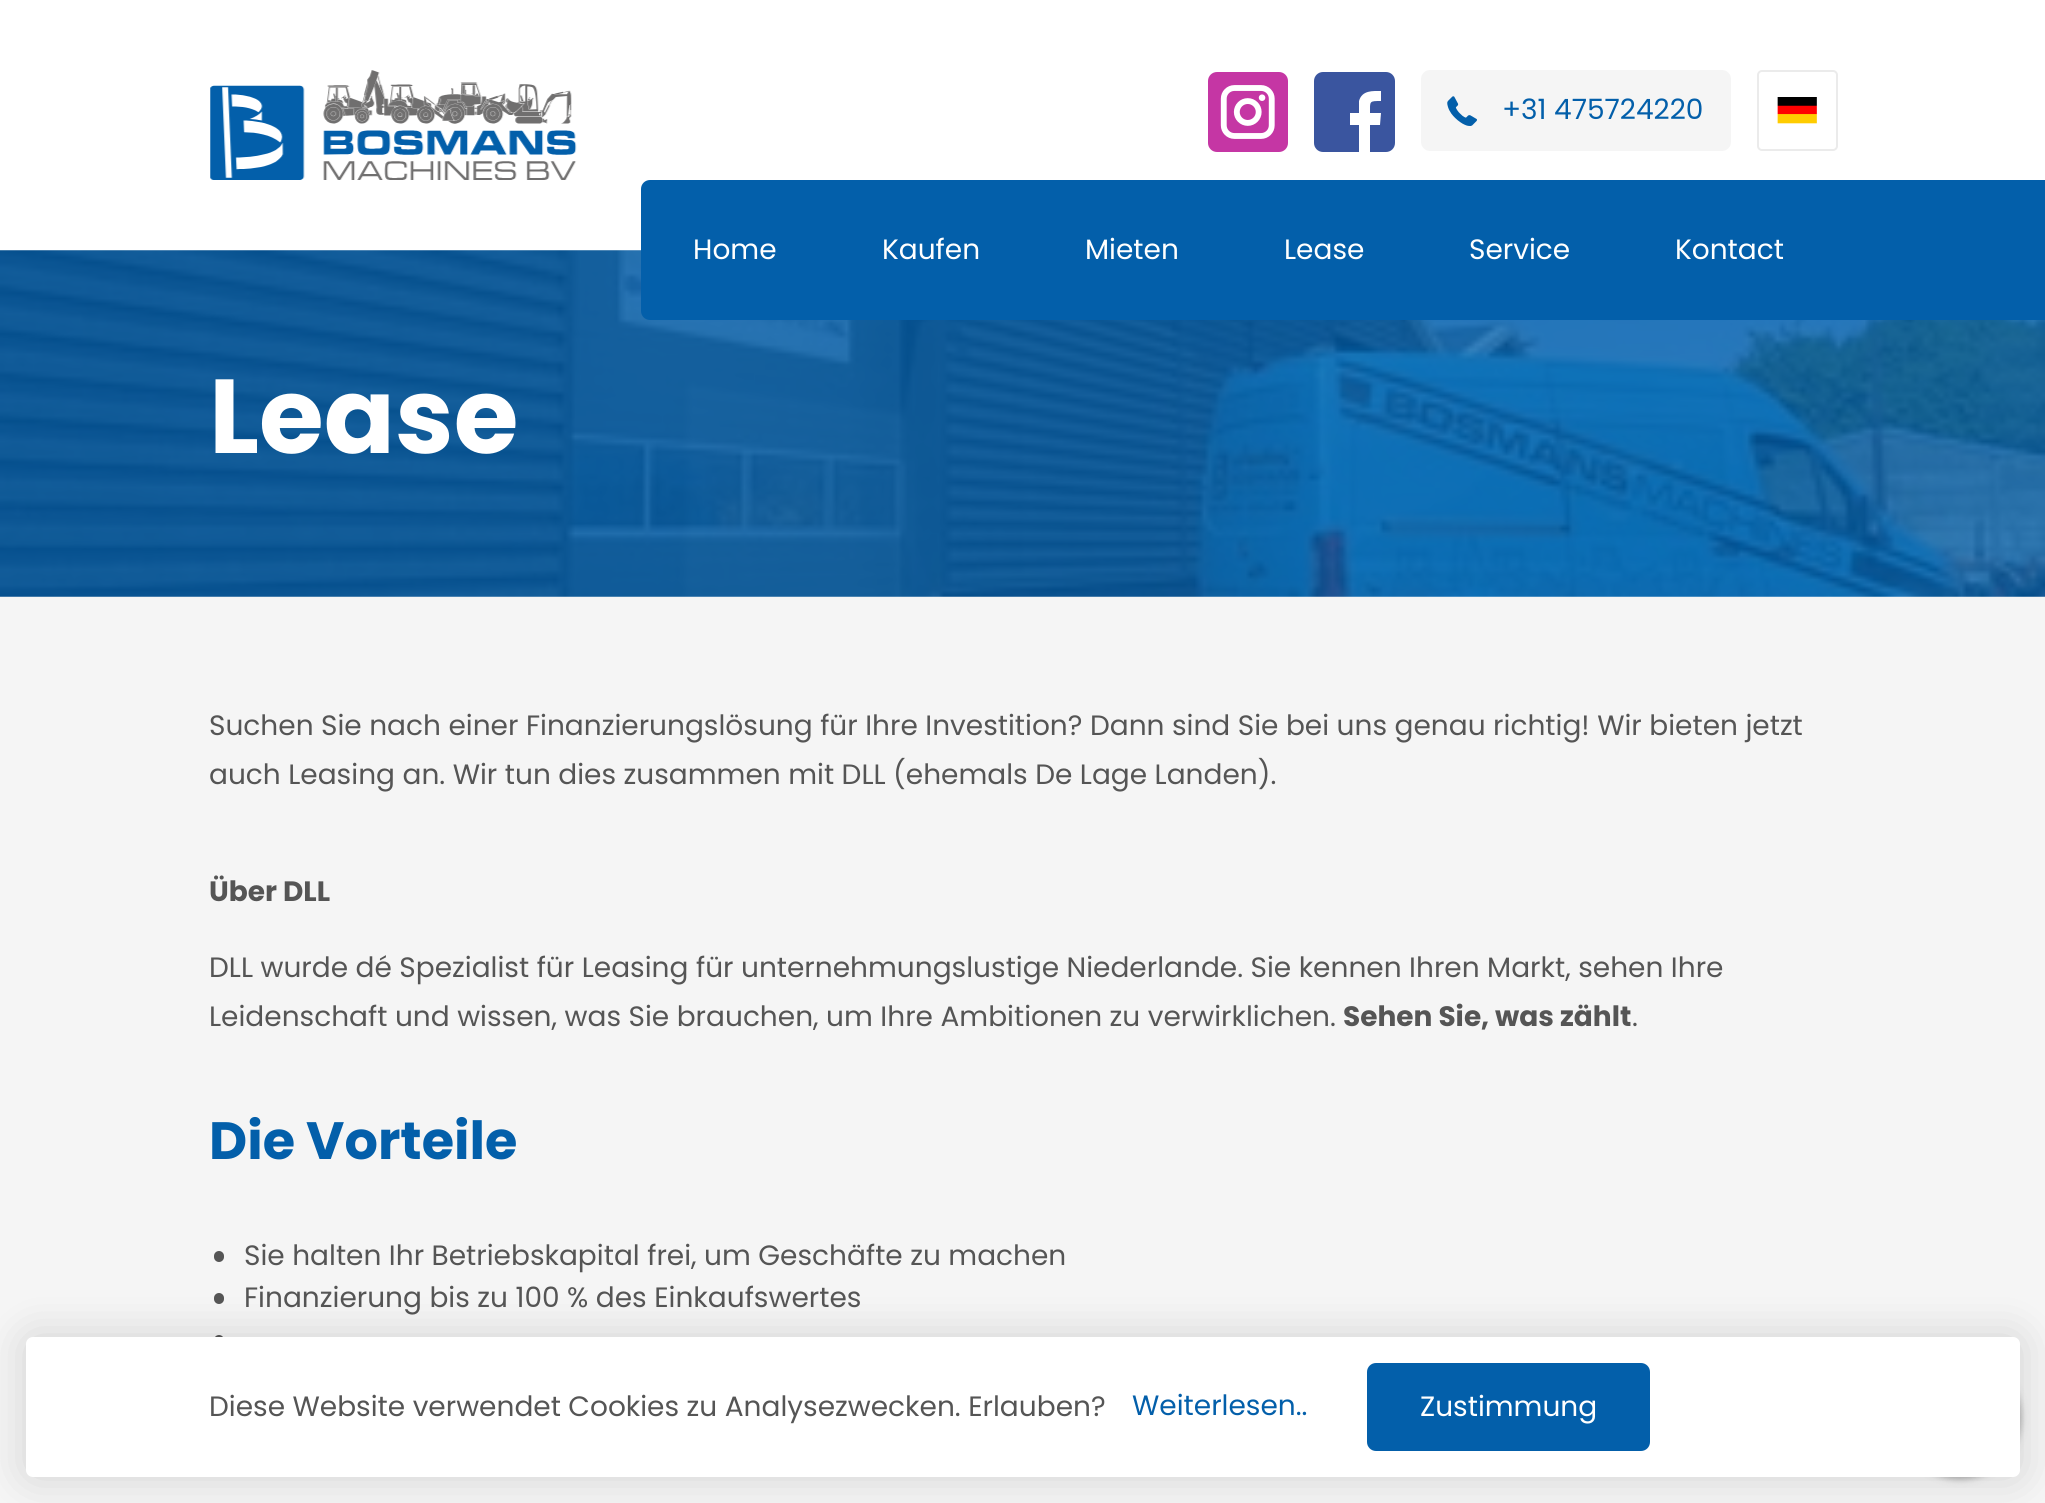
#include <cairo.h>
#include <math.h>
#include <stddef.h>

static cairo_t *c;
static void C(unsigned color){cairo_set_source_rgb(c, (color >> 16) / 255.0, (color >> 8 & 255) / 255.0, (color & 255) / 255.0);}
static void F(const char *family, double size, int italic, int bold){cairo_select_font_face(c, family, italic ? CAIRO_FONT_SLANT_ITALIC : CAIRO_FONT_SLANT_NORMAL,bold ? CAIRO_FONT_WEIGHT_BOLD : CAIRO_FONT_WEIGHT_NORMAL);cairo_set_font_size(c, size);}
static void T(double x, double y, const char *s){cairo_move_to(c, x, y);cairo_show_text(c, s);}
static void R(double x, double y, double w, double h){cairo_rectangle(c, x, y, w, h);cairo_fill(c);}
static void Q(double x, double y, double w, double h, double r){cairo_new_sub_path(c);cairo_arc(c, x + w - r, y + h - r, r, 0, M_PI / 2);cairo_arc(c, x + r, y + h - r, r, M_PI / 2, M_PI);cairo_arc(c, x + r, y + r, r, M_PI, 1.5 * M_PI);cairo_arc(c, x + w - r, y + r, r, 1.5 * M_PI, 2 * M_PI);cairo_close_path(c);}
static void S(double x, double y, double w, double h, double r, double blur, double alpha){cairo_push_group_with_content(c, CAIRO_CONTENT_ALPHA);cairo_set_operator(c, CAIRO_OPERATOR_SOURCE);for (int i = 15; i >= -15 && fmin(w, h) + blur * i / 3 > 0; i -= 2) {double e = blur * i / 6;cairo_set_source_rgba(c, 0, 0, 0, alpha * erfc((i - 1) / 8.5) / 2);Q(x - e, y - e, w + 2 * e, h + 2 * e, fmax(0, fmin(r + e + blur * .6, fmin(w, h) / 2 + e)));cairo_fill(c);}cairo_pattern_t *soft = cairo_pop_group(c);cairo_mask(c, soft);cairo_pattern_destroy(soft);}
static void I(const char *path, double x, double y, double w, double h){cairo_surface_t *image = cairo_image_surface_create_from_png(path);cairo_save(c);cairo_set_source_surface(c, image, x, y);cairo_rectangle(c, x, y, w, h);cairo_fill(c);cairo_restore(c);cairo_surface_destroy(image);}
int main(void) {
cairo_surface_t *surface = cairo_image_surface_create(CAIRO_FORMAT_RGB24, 2045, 1503);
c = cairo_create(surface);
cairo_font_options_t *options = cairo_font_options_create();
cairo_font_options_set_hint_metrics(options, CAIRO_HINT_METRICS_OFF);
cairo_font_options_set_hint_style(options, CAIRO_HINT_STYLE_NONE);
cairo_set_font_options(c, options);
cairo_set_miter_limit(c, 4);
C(0xf5f5f5);
cairo_paint(c);
C(0xffffff);
R(0,0,2045,250);
I("1.png",210,70,367,110);
I("2.png",1208,72,80,80);
C(0x3a559f);
Q(1314,72,81,80,9);
cairo_fill(c);
C(0xffffff);
cairo_new_path(c);
cairo_move_to(c,1380,125);
cairo_line_to(c,1381,113);
cairo_line_to(c,1370,113);
cairo_curve_to(c,1370,101,1369,101,1381,101);
cairo_line_to(c,1381,91);
cairo_curve_to(c,1373,91,1362,90,1359,101);
cairo_line_to(c,1359,113);
cairo_line_to(c,1350,113);
cairo_line_to(c,1350,125);
cairo_line_to(c,1359,125);
cairo_line_to(c,1359,152);
cairo_line_to(c,1370,152);
cairo_line_to(c,1370,125);
cairo_close_path(c);
cairo_fill(c);
C(0xf5f5f5);
Q(1421,70,310,81,9);
cairo_fill(c);
I("3.png",1447,96,30,30);
F("Poppins",28,0,0);
C(0x035faa);
T(1502,119,"+31 475724220");
Q(1758,71,79,79,4);
C(0xebebeb);
cairo_stroke(c);
I("4.png",1777,97,40,27);
I("5.png",0,250,2045,347);
C(0x035faa);
cairo_new_path(c);
cairo_move_to(c,650,180);
cairo_line_to(c,1838,180);
cairo_line_to(c,1838,320);
cairo_line_to(c,650,320);
cairo_curve_to(c,645,320,641,316,641,311);
cairo_line_to(c,641,189);
cairo_curve_to(c,641,184,645,180,650,180);
cairo_close_path(c);
cairo_fill(c);
C(0xffffff);
T(693,259,"Home");
T(882,259,"Kaufen");
T(1085,259,"Mieten");
T(1284,259,"Lease");
T(1469,259,"Service");
T(1675,259,"Kontact");
C(0x035faa);
R(1838,180,207,140);
F("Poppins",105,0,1);
C(0xffffff);
T(209,453,"Lease");
F("Poppins",28,0,0);
C(0x555555);
T(209,735,"Suchen Sie nach einer Finanzierungslösung für Ihre Investition? Dann sind Sie bei uns genau richtig! Wir bieten jetzt");
T(209,784,"auch Leasing an. Wir tun dies zusammen mit DLL (ehemals De Lage Landen).");
F("Poppins",28,0,1);
T(209,901,"Über DLL");
F("Poppins",28,0,0);
T(209,977,"DLL wurde dé Spezialist für Leasing für unternehmungslustige Niederlande. Sie kennen Ihren Markt, sehen Ihre");
T(209,1026,"Leidenschaft und wissen, was Sie brauchen, um Ihre Ambitionen zu verwirklichen.");
F("Poppins",28,0,1);
T(1343,1026,"Sehen Sie, was zählt");
F("Poppins",28,0,0);
T(1632,1026,".");
F("Poppins",52.5,0,1);
C(0x035faa);
T(209,1159,"Die Vorteile");
C(0x555555);
Q(214,1251,10,11,5);
cairo_fill(c);
F("Poppins",28,0,0);
T(244,1265,"Sie halten Ihr Betriebskapital frei, um Geschäfte zu machen");
Q(214,1293,10,11,5);
cairo_fill(c);
T(244,1307,"Finanzierung bis zu 100 % des Einkaufswertes");
Q(214,1335,10,11,5);
cairo_fill(c);
C(0x000000);
S(26,1337,1994,140,7,22,.15);
C(0x3c3c3c);
S(1899,1356,122,123,61,3.5,.4);
C(0xffffff);
Q(26,1337,1994,140,7);
cairo_fill(c);
C(0x555555);
T(209,1416,"Diese Website verwendet Cookies zu Analysezwecken. Erlauben?");
C(0x035faa);
T(1132,1415,"Weiterlesen..");
Q(1367,1363,283,88,9);
cairo_fill(c);
C(0xffffff);
T(1420,1416,"Zustimmung");
cairo_surface_write_to_png(surface, "o.png");
cairo_font_options_destroy(options);
cairo_destroy(c);
cairo_surface_destroy(surface);
return 0;
}
